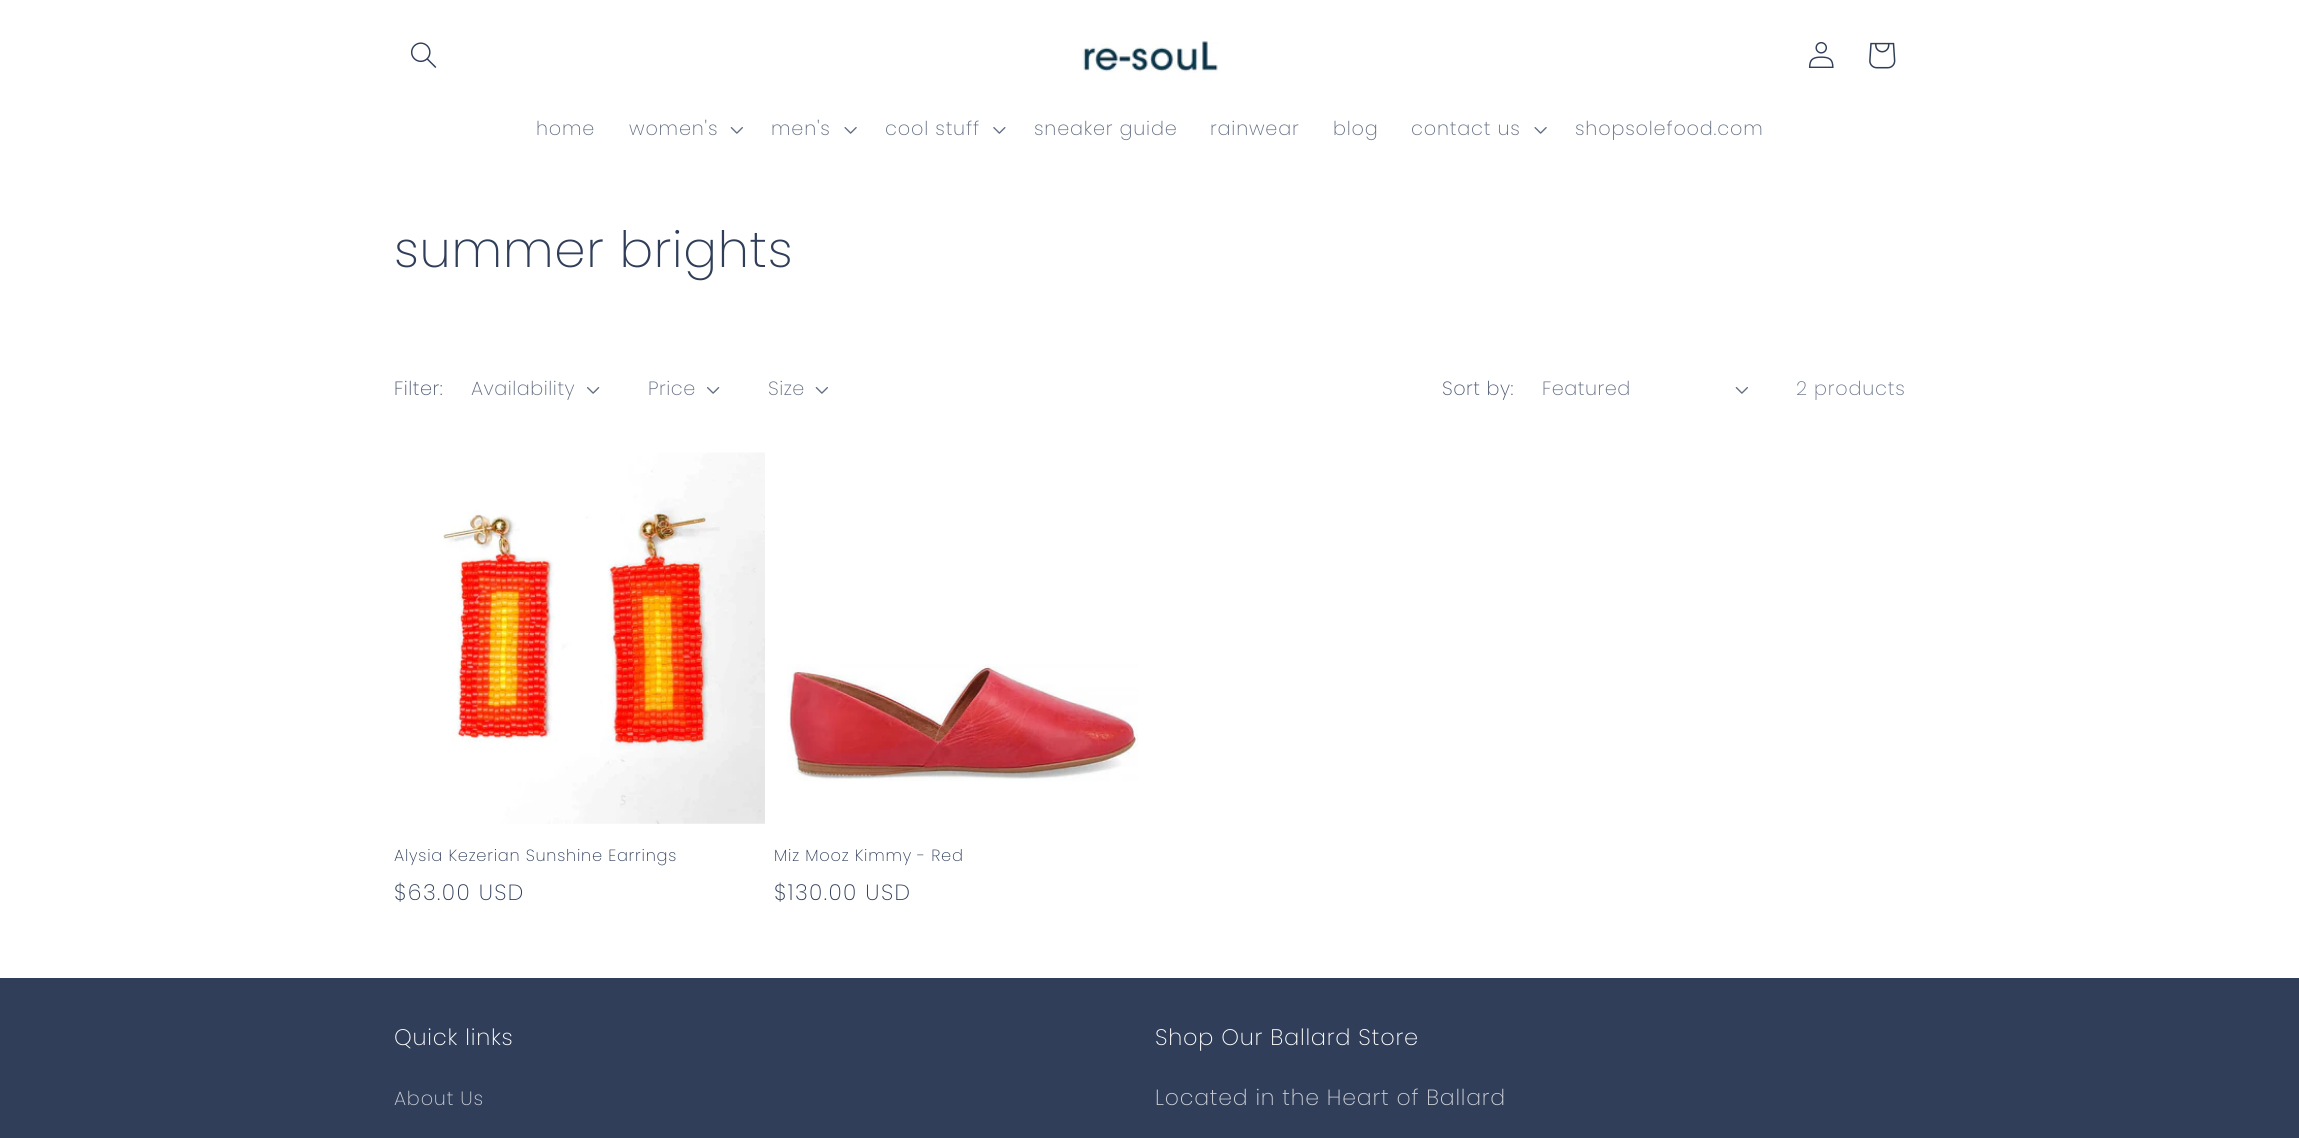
#include <cairo.h>
#include <math.h>
#include <stddef.h>

static cairo_t *c;
static void C(unsigned color){cairo_set_source_rgb(c, (color >> 16) / 255.0, (color >> 8 & 255) / 255.0, (color & 255) / 255.0);}
static void F(const char *family, double size, int italic, int bold){cairo_select_font_face(c, family, italic ? CAIRO_FONT_SLANT_ITALIC : CAIRO_FONT_SLANT_NORMAL,bold ? CAIRO_FONT_WEIGHT_BOLD : CAIRO_FONT_WEIGHT_NORMAL);cairo_set_font_size(c, size);}
static void L(double x, double y, const char *s, double letter, double word){cairo_move_to(c, x, y);while (*s) {char ch[5] = {0};int n = 0;do ch[n++] = *s++; while ((*s & 0xC0) == 0x80);cairo_show_text(c, ch);cairo_rel_move_to(c, letter + word * (*ch == ' '), 0);}}
static void R(double x, double y, double w, double h){cairo_rectangle(c, x, y, w, h);cairo_fill(c);}
static void I(const char *path, double x, double y, double w, double h){cairo_surface_t *image = cairo_image_surface_create_from_png(path);cairo_save(c);cairo_set_source_surface(c, image, x, y);cairo_rectangle(c, x, y, w, h);cairo_fill(c);cairo_restore(c);cairo_surface_destroy(image);}
int main(void) {
cairo_surface_t *surface = cairo_image_surface_create(CAIRO_FORMAT_RGB24, 2299, 1138);
c = cairo_create(surface);
cairo_font_options_t *options = cairo_font_options_create();
cairo_font_options_set_hint_metrics(options, CAIRO_HINT_METRICS_OFF);
cairo_font_options_set_hint_style(options, CAIRO_HINT_STYLE_NONE);
cairo_set_font_options(c, options);
cairo_set_miter_limit(c, 4);
C(0xffffff);
cairo_paint(c);
I("1.png",411,42,26,26);
I("2.png",1081,40,138,33);
I("3.png",1808,42,26,26);
I("4.png",1869,42,27,27);
F("Poppins Light",19.25,0,0);
C(0x646e83);
L(536,135,"home",.8,0);
L(629,135,"women's",.8,0);
I("5.png",730,127,13,7);
L(771,135,"men's",.8,0);
I("6.png",844,127,13,7);
L(885,135,"cool stuff",.8,0);
I("7.png",993,127,13,7);
L(1034,135,"sneaker guide",.8,0);
L(1210,135,"rainwear",.8,0);
L(1333,135,"blog",.8,0);
L(1411,135,"contact us",.8,0);
I("6.png",1534,127,13,7);
L(1575,135,"shopsolefood.com",.8,0);
F("Poppins Light",50,0,0);
C(0x303e59);
L(394,267,"summer brights",.75,0);
F("Poppins Light",19.25,0,0);
C(0x4f5b72);
L(394,395,"Filter:",.5,0);
C(0x646e83);
L(471,395,"Availability",.5,0);
I("8.png",587,387,13,7);
L(648,395,"Price",.5,0);
I("8.png",707,387,13,7);
L(768,395,"Size",.5,0);
I("5.png",815,387,13,7);
C(0x4f5b72);
L(1442,395,"Sort by:",.5,0);
C(0x646e83);
L(1542,395,"Featured",.5,0);
I("5.png",1735,387,13,7);
C(0x6e788b);
L(1796,395,"2 products",.8,0);
I("9.png",442,452,323,372);
F("Poppins Light",16.25,0,0);
C(0x303e59);
L(394,861,"Alysia Kezerian Sunshine Earrings",.75,0);
F("Poppins Light",22,0,0);
L(394,900,"$63.00 USD",1.4,0);
I("10.png",787,664,351,117);
F("Poppins Light",16.25,0,0);
L(774,861,"Miz Mooz Kimmy - Red",.75,0);
F("Poppins Light",22,0,0);
L(774,900,"$130.00 USD",1.4,0);
R(0,978,2299,160);
F("Poppins Light",22.5,0,0);
C(0xffffff);
L(394,1045,"Quick links",.75,0);
F("Poppins Light",19.25,0,0);
C(0xcbcfd6);
L(394,1105,"About Us",.8,0);
F("Poppins Light",22.5,0,0);
C(0xffffff);
L(1155,1045,"Shop Our Ballard Store",.75,0);
F("Poppins Light",22,0,0);
C(0xcbcfd6);
L(1155,1105,"Located in the Heart of Ballard",.8,0);
cairo_surface_write_to_png(surface, "o.png");
cairo_font_options_destroy(options);
cairo_destroy(c);
cairo_surface_destroy(surface);
return 0;
}
